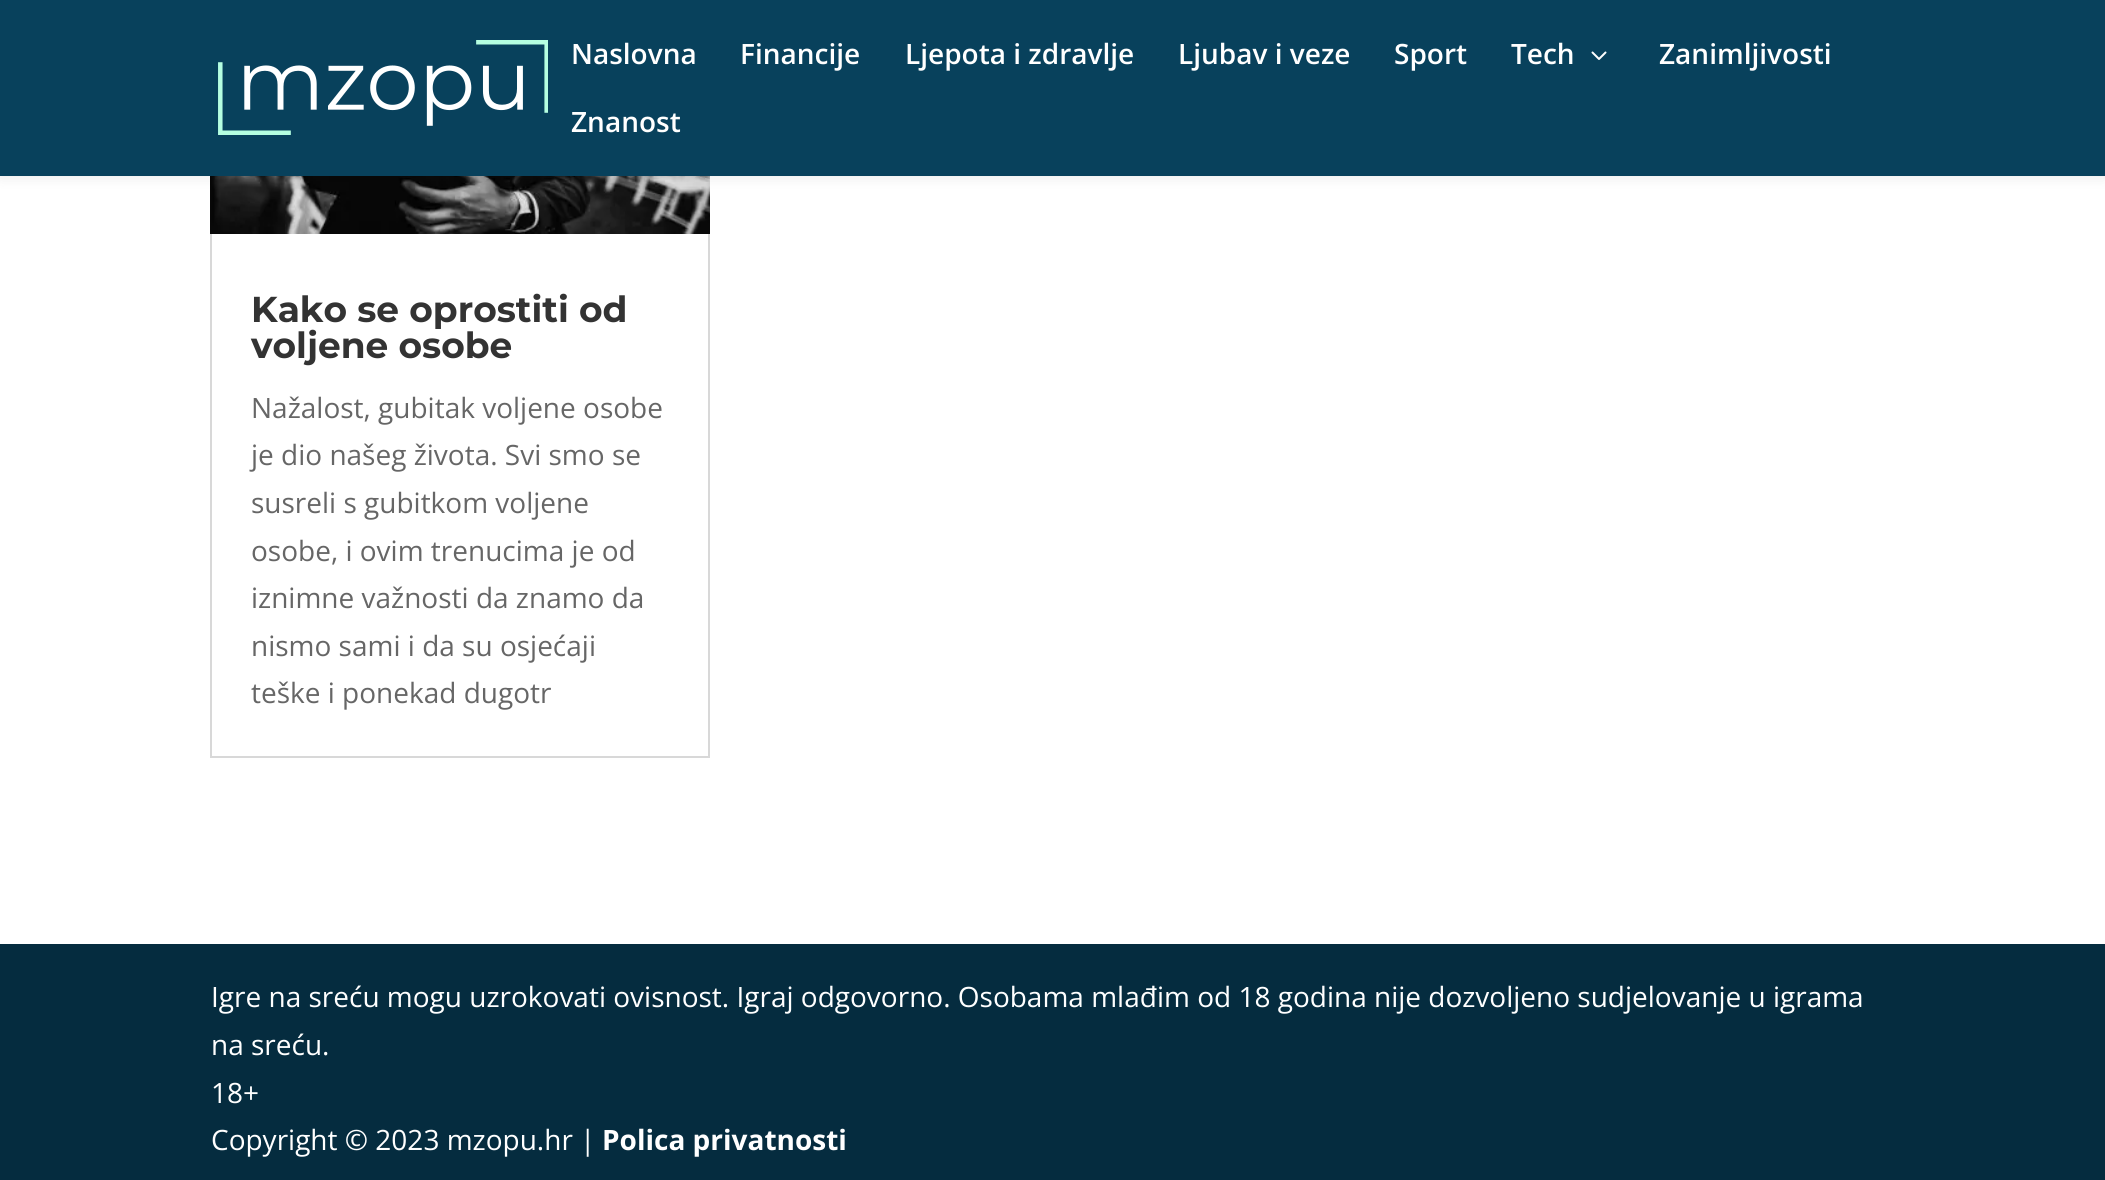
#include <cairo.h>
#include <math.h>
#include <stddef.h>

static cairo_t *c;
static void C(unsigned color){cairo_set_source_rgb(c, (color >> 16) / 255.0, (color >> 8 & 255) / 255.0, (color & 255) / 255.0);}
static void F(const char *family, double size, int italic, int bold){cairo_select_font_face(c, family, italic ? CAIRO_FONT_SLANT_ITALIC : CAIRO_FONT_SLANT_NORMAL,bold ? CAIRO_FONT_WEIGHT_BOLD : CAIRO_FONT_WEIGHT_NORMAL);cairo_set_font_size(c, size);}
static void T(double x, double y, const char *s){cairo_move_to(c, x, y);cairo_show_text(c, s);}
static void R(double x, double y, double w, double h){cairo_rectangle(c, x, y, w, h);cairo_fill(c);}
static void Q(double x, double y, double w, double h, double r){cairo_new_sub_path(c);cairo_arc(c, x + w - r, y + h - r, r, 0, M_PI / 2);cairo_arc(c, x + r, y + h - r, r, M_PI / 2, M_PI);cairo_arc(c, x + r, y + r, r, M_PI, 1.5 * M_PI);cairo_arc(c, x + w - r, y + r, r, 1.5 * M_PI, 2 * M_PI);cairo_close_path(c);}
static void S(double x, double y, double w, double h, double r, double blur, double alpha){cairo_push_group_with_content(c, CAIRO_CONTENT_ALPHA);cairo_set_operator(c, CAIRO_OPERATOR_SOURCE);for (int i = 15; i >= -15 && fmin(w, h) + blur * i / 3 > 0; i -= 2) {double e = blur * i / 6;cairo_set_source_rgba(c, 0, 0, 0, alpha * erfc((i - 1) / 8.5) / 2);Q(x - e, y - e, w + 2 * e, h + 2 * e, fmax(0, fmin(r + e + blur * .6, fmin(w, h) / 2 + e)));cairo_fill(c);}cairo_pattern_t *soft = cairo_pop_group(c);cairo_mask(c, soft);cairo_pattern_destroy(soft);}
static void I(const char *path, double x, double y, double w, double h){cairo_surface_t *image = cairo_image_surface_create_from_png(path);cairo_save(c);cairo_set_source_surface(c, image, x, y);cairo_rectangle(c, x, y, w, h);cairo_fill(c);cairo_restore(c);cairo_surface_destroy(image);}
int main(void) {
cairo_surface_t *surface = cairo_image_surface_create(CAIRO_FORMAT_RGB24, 2105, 1180);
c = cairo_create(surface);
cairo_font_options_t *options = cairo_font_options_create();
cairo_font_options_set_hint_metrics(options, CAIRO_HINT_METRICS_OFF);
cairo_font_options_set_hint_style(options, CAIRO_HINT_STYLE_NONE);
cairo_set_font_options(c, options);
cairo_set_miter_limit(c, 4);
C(0xffffff);
cairo_paint(c);
cairo_rectangle(c,211,-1,498,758);
C(0xd8d8d8);
cairo_stroke(c);
I("3.png",210,176,500,58);
C(0x000000);
S(0,0,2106,176,0,7,.1);
C(0x08415c);
R(0,0,2105,176);
I("1.png",218,40,330,95);
F("Open Sans SemiBold",28,0,0);
C(0xffffff);
T(571,64,"Naslovna");
T(740,64,"Financije");
T(905,64,"Ljepota i zdravlje");
T(1178,64,"Ljubav i veze");
T(1394,64,"Sport");
T(1511,64,"Tech");
I("2.png",1591,51,16,9);
T(1659,64,"Zanimljivosti");
T(571,132,"Znanost");
F("Montserrat Thin",36,0,0);
C(0x333333);
T(251,322,"Kako se oprostiti od");
T(251,358,"voljene osobe");
F("Open Sans",28,0,0);
C(0x666666);
T(251,418,"Nažalost, gubitak voljene osobe");
T(251,465,"je dio našeg života. Svi smo se");
T(251,513,"susreli s gubitkom voljene");
T(251,561,"osobe, i ovim trenucima je od");
T(251,608,"iznimne važnosti da znamo da");
T(251,656,"nismo sami i da su osjećaji");
T(251,703,"teške i ponekad dugotr");
C(0x052c3f);
R(0,944,2105,236);
C(0xffffff);
T(211,1007,"Igre na sreću mogu uzrokovati ovisnost. Igraj odgovorno. Osobama mlađim od 18 godina nije dozvoljeno sudjelovanje u igrama");
T(211,1055,"na sreću.");
T(211,1103,"18+");
T(211,1150,"Copyright © 2023 mzopu.hr |");
F("Open Sans",28,0,1);
T(602,1150,"Polica privatnosti");
cairo_surface_write_to_png(surface, "o.png");
cairo_font_options_destroy(options);
cairo_destroy(c);
cairo_surface_destroy(surface);
return 0;
}
